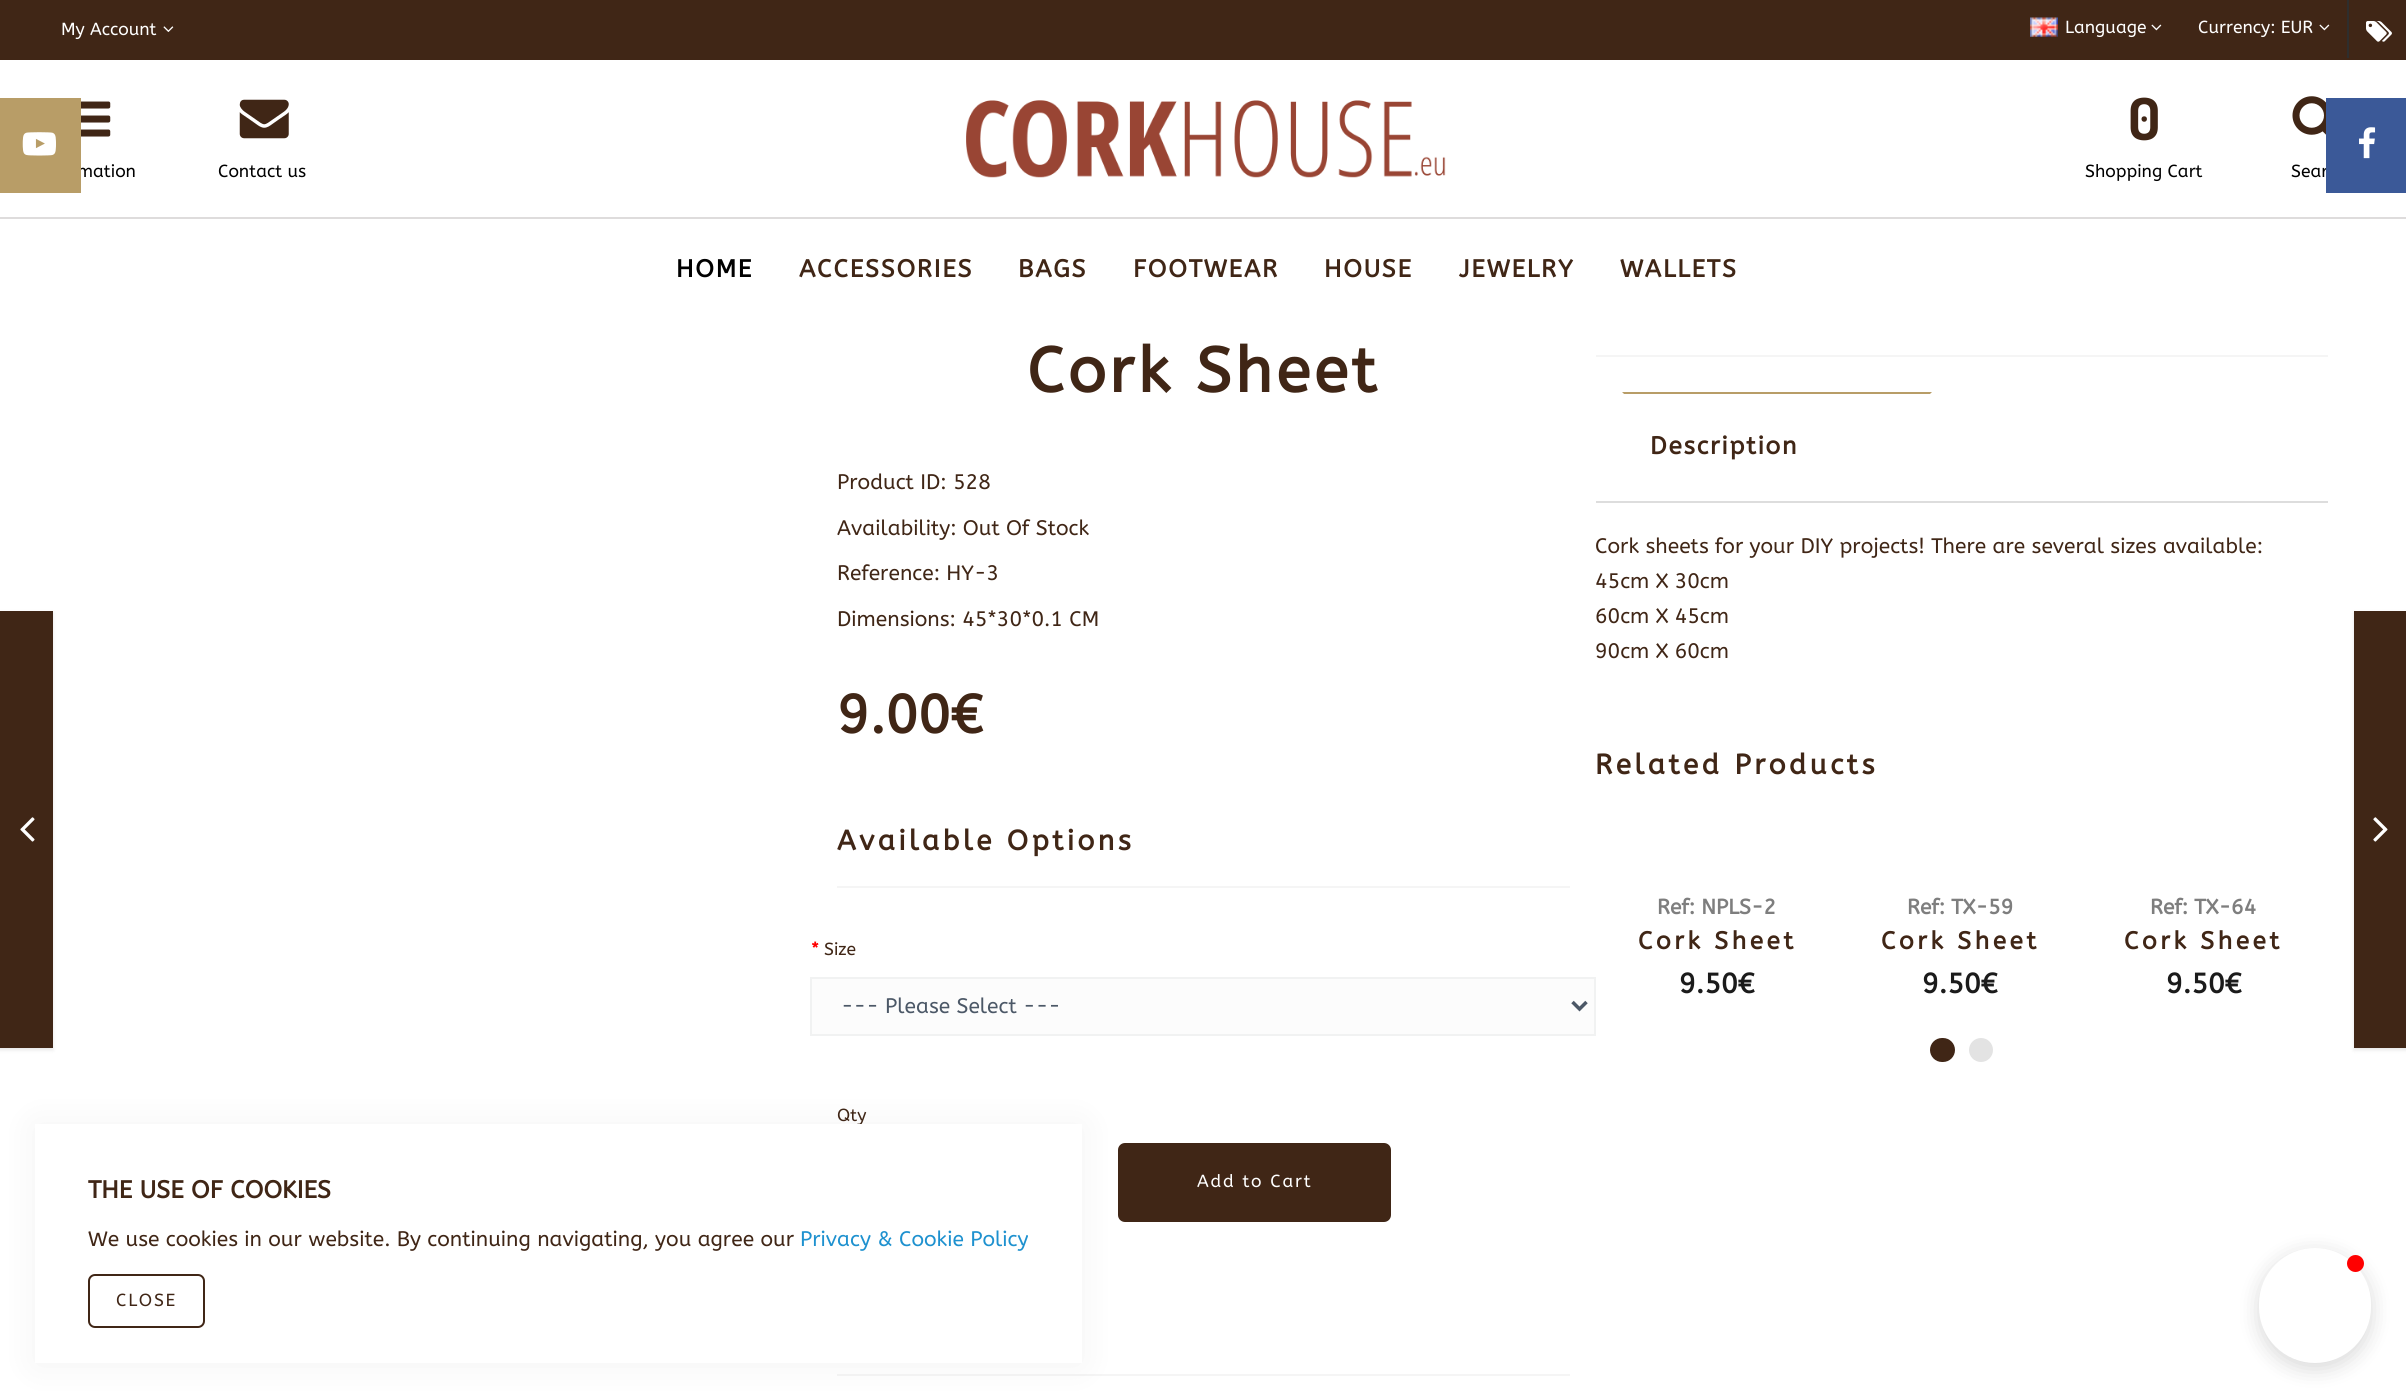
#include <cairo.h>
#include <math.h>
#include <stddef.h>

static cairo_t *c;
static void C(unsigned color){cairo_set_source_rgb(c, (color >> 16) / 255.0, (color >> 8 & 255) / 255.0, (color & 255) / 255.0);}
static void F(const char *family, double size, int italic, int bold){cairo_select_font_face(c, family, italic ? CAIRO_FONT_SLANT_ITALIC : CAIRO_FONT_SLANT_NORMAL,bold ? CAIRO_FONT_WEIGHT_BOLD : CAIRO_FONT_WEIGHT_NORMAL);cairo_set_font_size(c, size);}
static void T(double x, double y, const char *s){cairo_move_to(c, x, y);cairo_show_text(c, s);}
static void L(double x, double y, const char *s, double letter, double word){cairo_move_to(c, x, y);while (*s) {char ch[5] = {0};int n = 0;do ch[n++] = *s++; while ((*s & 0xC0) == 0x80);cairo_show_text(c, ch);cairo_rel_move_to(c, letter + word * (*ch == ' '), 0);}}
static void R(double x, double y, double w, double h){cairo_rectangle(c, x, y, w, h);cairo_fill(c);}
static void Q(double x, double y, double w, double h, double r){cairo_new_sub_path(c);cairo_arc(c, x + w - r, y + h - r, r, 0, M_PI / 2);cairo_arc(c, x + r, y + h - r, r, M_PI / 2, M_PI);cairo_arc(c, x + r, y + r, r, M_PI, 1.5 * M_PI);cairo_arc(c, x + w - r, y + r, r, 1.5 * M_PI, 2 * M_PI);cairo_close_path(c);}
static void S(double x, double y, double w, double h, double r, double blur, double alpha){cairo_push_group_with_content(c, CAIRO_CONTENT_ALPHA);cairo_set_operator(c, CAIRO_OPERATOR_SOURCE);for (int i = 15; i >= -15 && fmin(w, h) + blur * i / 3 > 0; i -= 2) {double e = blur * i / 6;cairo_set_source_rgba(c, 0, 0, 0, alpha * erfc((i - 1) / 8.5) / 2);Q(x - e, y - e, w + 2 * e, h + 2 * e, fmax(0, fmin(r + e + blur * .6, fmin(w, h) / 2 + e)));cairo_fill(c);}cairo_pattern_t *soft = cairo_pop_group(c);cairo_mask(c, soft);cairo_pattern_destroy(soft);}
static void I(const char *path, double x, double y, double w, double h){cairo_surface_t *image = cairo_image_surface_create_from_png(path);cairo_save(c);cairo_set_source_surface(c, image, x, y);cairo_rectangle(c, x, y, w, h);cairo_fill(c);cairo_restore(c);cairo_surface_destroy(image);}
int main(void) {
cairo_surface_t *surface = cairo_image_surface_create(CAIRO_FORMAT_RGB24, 2406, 1397);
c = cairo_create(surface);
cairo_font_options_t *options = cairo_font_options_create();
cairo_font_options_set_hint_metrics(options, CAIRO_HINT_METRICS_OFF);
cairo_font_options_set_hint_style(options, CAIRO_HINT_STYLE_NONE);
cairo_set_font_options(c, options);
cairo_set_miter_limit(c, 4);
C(0xffffff);
cairo_paint(c);
F("ABeeZee",17.5,0,0);
C(0x000000);
T(77,177,"mation");
C(0xb89d67);
R(0,98,81,95);
I("1.png",22,132,34,24);
C(0x402616);
R(0,0,2406,60);
C(0xffffff);
T(61,35,"My Account");
I("2.png",163,26,11,6);
I("3.png",2030,17,28,20);
T(2065,33,"Language");
I("4.png",2151,24,11,7);
T(2198,33,"Currency: EUR");
I("4.png",2319,24,11,7);
I("5.png",81,101,30,36);
I("6.png",239,99,50,40);
C(0x000000);
T(218,177,"Contact us");
I("7.png",966,100,480,78);
F("Dosis",58,0,1);
C(0x402616);
T(2128,140,"0");
F("ABeeZee",17.5,0,0);
C(0x000000);
T(2085,177,"Shopping Cart");
I("8.png",2292,96,34,39);
T(2291,177,"Sear");
C(0xdedcdc);
R(0,217,2406,2);
F("ABeeZee",24.5,0,1);
C(0x000000);
L(676,277,"HOME",1.75,0);
C(0x402616);
L(799,277,"ACCESSORIES",1.75,0);
L(1018,277,"BAGS",1.75,0);
L(1133,277,"FOOTWEAR",1.75,0);
L(1324,277,"HOUSE",1.75,0);
L(1459,277,"JEWELRY",1.75,0);
L(1620,277,"WALLETS",1.75,0);
C(0x000000);
S(-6,613,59,437,0,2,.1);
C(0x402616);
R(0,611,53,437);
I("9.png",20,817,15,25);
F("ABeeZee",63,0,1);
L(1027,392,"Cork Sheet",3.5,0);
F("ABeeZee",21,0,0);
T(837,489,"Product ID: 528");
T(837,535,"Availability: Out Of Stock");
T(837,580,"Reference: HY-3");
T(837,626,"Dimensions: 45*30*0.1 CM");
F("ABeeZee",54,0,1);
T(837,733,"9.00€");
C(0xf5f5f5);
R(837,886,733,2);
F("ABeeZee",28,0,1);
C(0x402616);
L(837,850,"Available Options",3.5,0);
F("ABeeZee",17.5,0,1);
C(0xff0000);
T(811,955,"*");
F("ABeeZee",17.5,0,0);
C(0x402616);
T(824,955,"Size");
C(0xfcfcfc);
cairo_rectangle(c,811,978,784,57);
cairo_fill_preserve(c);
C(0xf1f2f2);
cairo_stroke(c);
cairo_new_path(c);
cairo_move_to(c,1572.5,1002);
cairo_line_to(c,1579.5,1009);
cairo_line_to(c,1586.5,1002);
C(0x4c5867);
cairo_set_line_width(c,3.5);
cairo_stroke(c);
F("ABeeZee",21,0,0);
T(841,1013,"--- Please Select ---");
F("ABeeZee",17.5,0,0);
C(0x402616);
T(837,1121,"Qty");
Q(1120.5,1145.5,268,74,4.5);
cairo_fill_preserve(c);
cairo_set_line_width(c,5);
cairo_stroke(c);
C(0xffffff);
L(1197,1187,"Add to Cart",1.75,0);
C(0xf5f5f5);
R(837,1374,733,2);
R(1596,355,732,2);
C(0xdddddd);
R(1596,501,732,2);
C(0xb89d67);
cairo_new_path(c);
cairo_move_to(c,1622,392);
cairo_line_to(c,1932,392);
cairo_line_to(c,1930,394);
cairo_line_to(c,1624,394);
cairo_close_path(c);
cairo_fill(c);
F("ABeeZee",24.5,0,1);
C(0x402616);
L(1650,454,"Description",1.75,0);
F("ABeeZee",21,0,0);
T(1595,553,"Cork sheets for your DIY projects! There are several sizes available:");
T(1595,588,"45cm X 30cm");
T(1595,623,"60cm X 45cm");
T(1595,658,"90cm X 60cm");
F("ABeeZee",28,0,1);
L(1595,774,"Related Products",3.5,0);
F("ABeeZee",21,0,1);
C(0x7e7e7e);
T(1657,914,"Ref: NPLS-2");
F("ABeeZee",24.5,0,1);
C(0x402616);
L(1638,949,"Cork Sheet",3.5,0);
F("ABeeZee",28,0,1);
C(0x1b1b1b);
T(1679,993,"9.50€");
F("ABeeZee",21,0,1);
C(0x7e7e7e);
T(1907,914,"Ref: TX-59");
F("ABeeZee",24.5,0,1);
C(0x402616);
L(1881,949,"Cork Sheet",3.5,0);
F("ABeeZee",28,0,1);
C(0x1b1b1b);
T(1922,993,"9.50€");
F("ABeeZee",21,0,1);
C(0x7e7e7e);
T(2150,914,"Ref: TX-64");
F("ABeeZee",24.5,0,1);
C(0x402616);
L(2124,949,"Cork Sheet",3.5,0);
F("ABeeZee",28,0,1);
C(0x1b1b1b);
T(2166,993,"9.50€");
C(0x402616);
Q(1930,1038,25,24,12);
cairo_fill(c);
C(0xe3e3e3);
cairo_arc(c,1981,1050,12,0,2 * M_PI);
cairo_fill(c);
C(0x000000);
S(2354,613,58,437,0,2,.1);
C(0x402616);
R(2354,611,52,437);
I("10.png",2373,817,15,25);
C(0x000000);
S(35,1125,1047,240,0,17.5,.05);
C(0xffffff);
R(35,1124,1047,239);
F("ABeeZee",24.5,0,1);
C(0x402616);
T(88,1198,"THE USE OF COOKIES");
F("ABeeZee",21,0,0);
T(88,1246,"We use cookies in our website. By continuing navigating, you agree our");
C(0x1e91cf);
T(800,1246,"Privacy & Cookie Policy");
Q(89,1275,115,52,6);
C(0x402616);
cairo_set_line_width(c,2);
cairo_stroke(c);
F("ABeeZee",17.5,0,0);
L(116,1306,"CLOSE",1.75,0);
C(0x2e2e2e);
R(2347,0,2,58);
I("11.png",2366,21,26,21);
C(0x3b5998);
R(2326,98,80,95);
I("12.png",2359,127,17,32);
C(0x000000);
S(2259,1253,112,116,56,10.5,.15);
C(0xffffff);
Q(2259,1248,112,115,56);
cairo_fill(c);
C(0xff0000);
cairo_arc(c,2355.5,1263.5,8.5,0,2 * M_PI);
cairo_fill(c);
cairo_surface_write_to_png(surface, "o.png");
cairo_font_options_destroy(options);
cairo_destroy(c);
cairo_surface_destroy(surface);
return 0;
}
